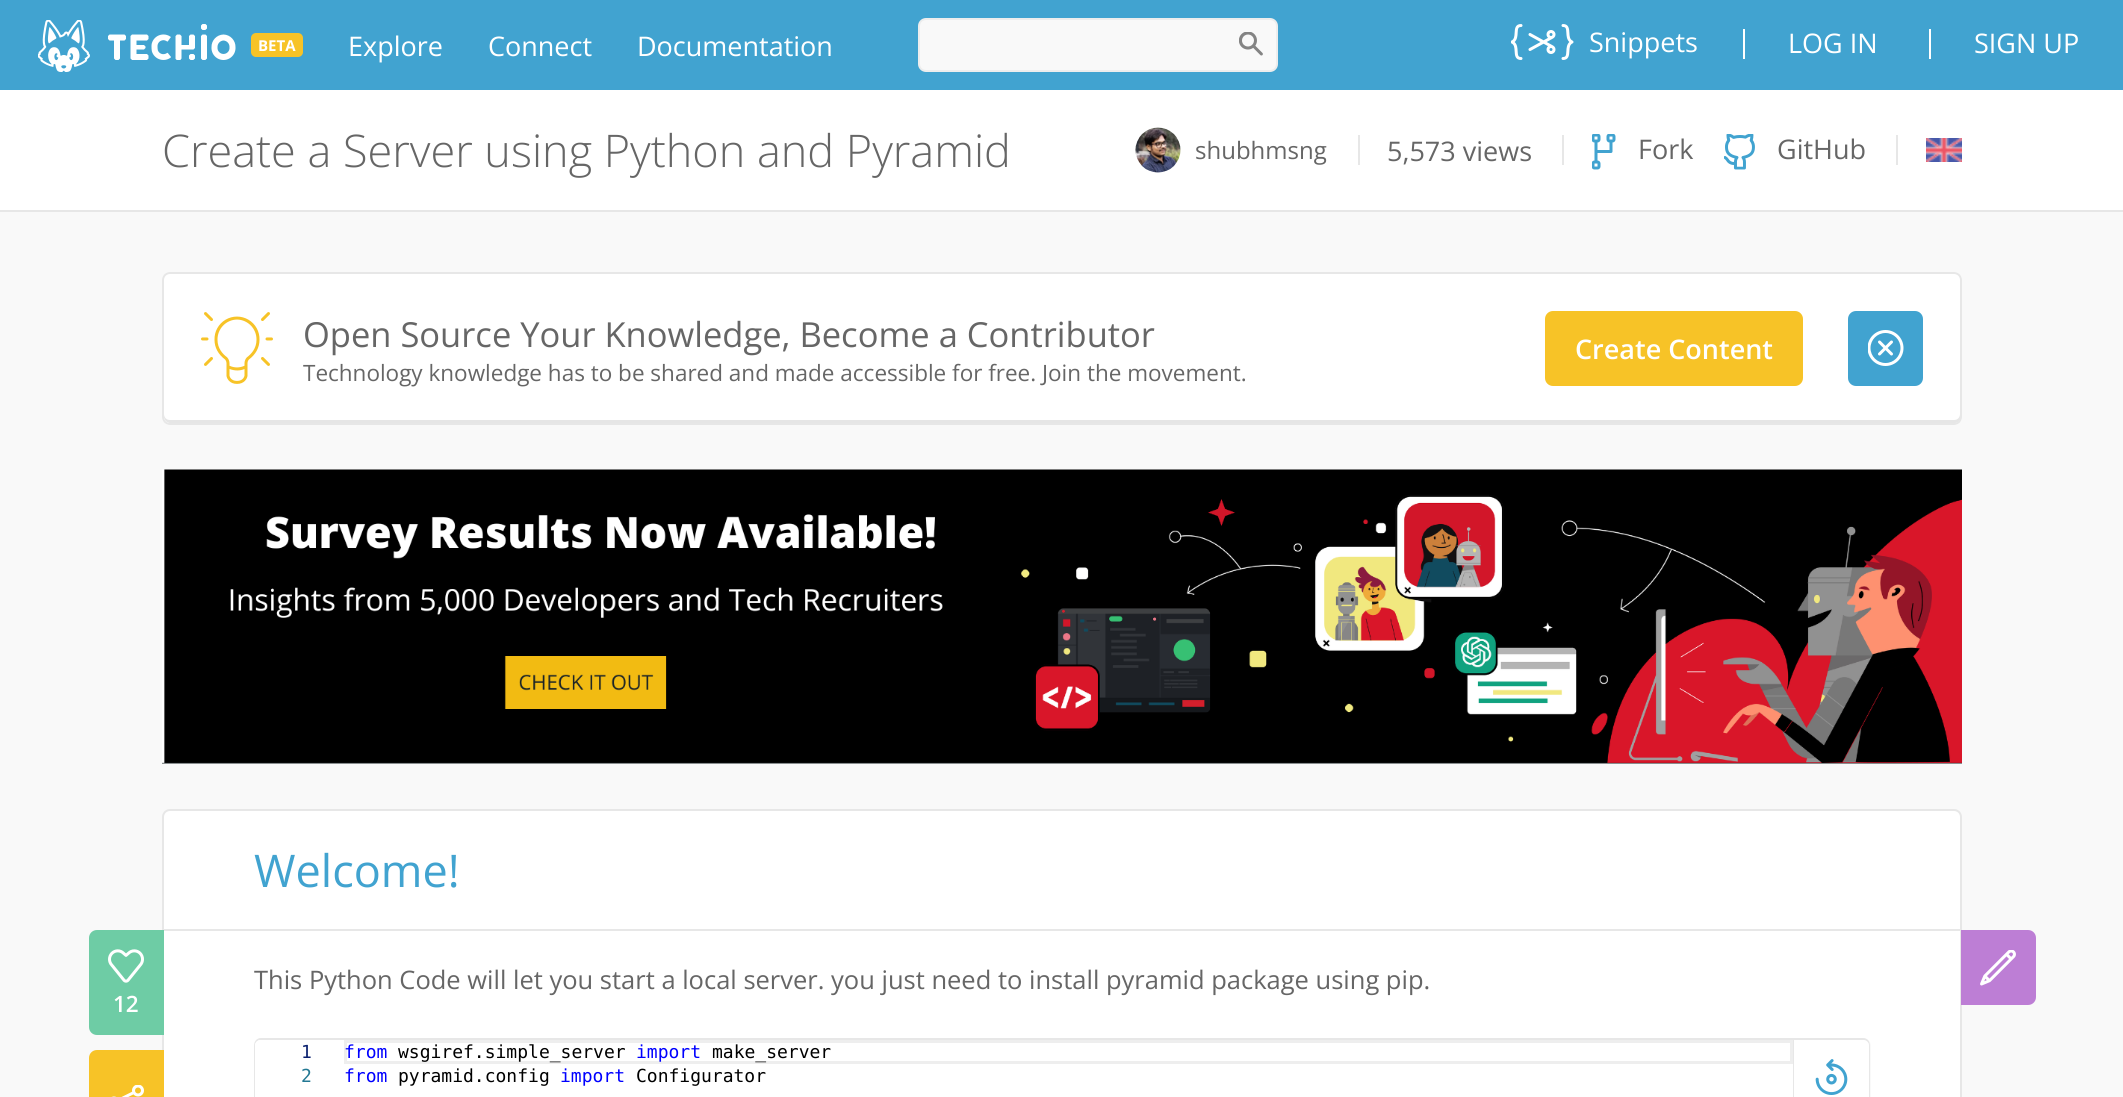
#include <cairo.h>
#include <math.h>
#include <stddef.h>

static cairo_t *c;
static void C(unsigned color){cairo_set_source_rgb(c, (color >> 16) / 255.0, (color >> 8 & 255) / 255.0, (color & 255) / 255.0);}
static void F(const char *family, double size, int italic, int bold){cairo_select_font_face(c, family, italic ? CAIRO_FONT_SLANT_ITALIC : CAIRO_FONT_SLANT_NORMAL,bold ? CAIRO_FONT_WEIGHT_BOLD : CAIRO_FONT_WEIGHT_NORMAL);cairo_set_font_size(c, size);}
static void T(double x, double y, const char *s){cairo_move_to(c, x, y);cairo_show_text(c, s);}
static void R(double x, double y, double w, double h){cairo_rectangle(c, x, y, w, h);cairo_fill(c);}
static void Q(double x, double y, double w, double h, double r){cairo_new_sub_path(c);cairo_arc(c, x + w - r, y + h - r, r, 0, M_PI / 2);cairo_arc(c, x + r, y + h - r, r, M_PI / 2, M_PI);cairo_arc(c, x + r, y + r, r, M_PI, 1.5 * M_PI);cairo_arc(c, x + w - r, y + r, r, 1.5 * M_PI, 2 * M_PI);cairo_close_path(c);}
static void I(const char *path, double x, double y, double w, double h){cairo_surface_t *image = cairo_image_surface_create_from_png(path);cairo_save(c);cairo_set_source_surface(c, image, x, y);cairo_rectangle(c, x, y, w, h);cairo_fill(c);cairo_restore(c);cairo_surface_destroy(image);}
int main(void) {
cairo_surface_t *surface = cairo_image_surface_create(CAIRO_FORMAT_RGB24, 2123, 1097);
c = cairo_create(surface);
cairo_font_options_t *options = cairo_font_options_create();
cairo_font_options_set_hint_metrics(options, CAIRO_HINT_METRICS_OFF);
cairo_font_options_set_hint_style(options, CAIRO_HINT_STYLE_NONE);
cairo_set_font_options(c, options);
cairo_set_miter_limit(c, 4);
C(0xf9f9f9);
cairo_paint(c);
C(0x41a3d0);
R(0,0,2123,90);
I("1.png",38,20,198,52);
C(0xf7c327);
Q(251,33,52,24,5);
cairo_fill(c);
F("Open Sans",15,0,1);
C(0xffffff);
T(258,51,"BETA");
F("Open Sans",27,0,0);
T(348,56,"Explore");
T(488,56,"Connect");
T(637,56,"Documentation");
C(0xf9f9f9);
Q(919,19,358,52,7);
cairo_fill_preserve(c);
C(0xededed);
cairo_stroke(c);
I("2.png",1239,32,24,24);
I("3.png",1511,24,63,36);
C(0xffffff);
T(1589,52,"Snippets");
R(1743,29,2,30);
T(1788,53,"LOG IN");
R(1929,29,2,30);
T(1974,53,"SIGN UP");
R(0,90,2123,120);
C(0xe7e7e7);
R(0,210,2123,2);
F("Open Sans Light",45,0,0);
C(0x666666);
T(162,167,"Create a Server using Python and Pyramid");
I("4.png",1135,127,46,46);
F("Open Sans",24,0,0);
T(1195,159,"shubhmsng");
C(0xe7e7e7);
R(1358,135,2,30);
F("Open Sans",27,0,0);
C(0x666666);
T(1387,161,"5,573 views");
C(0xe7e7e7);
R(1562,135,2,30);
I("5.png",1592,134,24,36);
C(0x666666);
T(1638,159,"Fork");
I("6.png",1724,134,31,36);
T(1777,159,"GitHub");
C(0xe7e7e7);
R(1896,135,2,30);
I("7.png",1926,138,36,24);
C(0xffffff);
Q(162,272,1800,153,8);
cairo_fill(c);
C(0xe6e6e6);
cairo_new_path(c);
cairo_move_to(c,164,414);
cairo_line_to(c,164,417);
cairo_curve_to(c,164,420,167,423,170,423);
cairo_line_to(c,1955,423);
cairo_curve_to(c,1958,423,1961,420,1961,417);
cairo_line_to(c,1961,279);
cairo_curve_to(c,1961,278,1961,277,1960,276);
cairo_line_to(c,1960,414);
cairo_curve_to(c,1960,417,1958,420,1954,420);
cairo_line_to(c,170,420);
cairo_curve_to(c,166,420,164,417,164,414);
cairo_close_path(c);
cairo_fill(c);
Q(163,273,1798,151,7);
C(0xe7e7e7);
cairo_stroke(c);
I("8.png",201,312,72,72);
F("Open Sans",34.5,0,0);
C(0x666666);
T(303,347,"Open Source Your Knowledge, Become a Contributor");
F("Open Sans",22.5,0,0);
T(303,381,"Technology knowledge has to be shared and made accessible for free. Join the movement.");
C(0xf7c327);
Q(1545,311,258,75,8);
cairo_fill(c);
F("Open Sans SemiBold",27,0,0);
C(0xffffff);
T(1575,359,"Create Content");
C(0x41a3d0);
Q(1848,311,75,75,8);
cairo_fill(c);
I("9.png",1868,330,36,36);
I("10.png",162,469,1800,295);
C(0xffffff);
Q(163,810,1798,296,7);
cairo_fill_preserve(c);
C(0xe7e7e7);
cairo_stroke(c);
C(0x6ecca5);
cairo_new_path(c);
cairo_move_to(c,97,930);
cairo_line_to(c,164,930);
cairo_line_to(c,164,1035);
cairo_line_to(c,97,1035);
cairo_curve_to(c,92.5,1035,89,1031.5,89,1027);
cairo_line_to(c,89,938);
cairo_curve_to(c,89,933.5,92.5,930,97,930);
cairo_close_path(c);
cairo_fill(c);
I("11.png",108,949,36,34);
F("Open Sans SemiBold",22.5,0,0);
C(0xffffff);
T(113,1012,"12");
C(0xf7c327);
cairo_new_path(c);
cairo_move_to(c,97,1050);
cairo_line_to(c,164,1050);
cairo_line_to(c,164,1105);
cairo_line_to(c,97,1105);
cairo_curve_to(c,92.5,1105,89,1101.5,89,1097);
cairo_line_to(c,89,1058);
cairo_curve_to(c,89,1053.5,92.5,1050,97,1050);
cairo_close_path(c);
cairo_fill(c);
I("12.png",111,1085,33,12);
C(0xe7e7e7);
R(164,929,1797,2);
F("Open Sans",45,0,0);
C(0x41a3d0);
T(254,887,"Welcome!");
F("Open Sans",25.5,0,0);
C(0x666666);
T(254,989,"This Python Code will let you start a local server. you just need to install pyramid package using pip.");
C(0xf9f9f9);
Q(254,1038,1617,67,8);
cairo_fill(c);
C(0xe7e7e7);
cairo_set_fill_rule(c,CAIRO_FILL_RULE_EVEN_ODD);
cairo_new_path(c);
cairo_move_to(c,261,1038);
cairo_line_to(c,1863,1038);
cairo_curve_to(c,1867,1038,1870,1041,1870,1046);
cairo_line_to(c,1870,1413);
cairo_line_to(c,254,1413);
cairo_line_to(c,254,1046);
cairo_curve_to(c,254,1041,257,1038,261,1038);
cairo_close_path(c);
cairo_move_to(c,261,1040);
cairo_line_to(c,1863,1040);
cairo_curve_to(c,1866,1040,1869,1042,1869,1046);
cairo_line_to(c,1869,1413);
cairo_line_to(c,255,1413);
cairo_line_to(c,255,1046);
cairo_curve_to(c,255,1042,258,1040,261,1040);
cairo_close_path(c);
cairo_fill(c);
C(0xffffff);
cairo_new_path(c);
cairo_move_to(c,261,1040);
cairo_line_to(c,1793,1040);
cairo_line_to(c,1793,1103);
cairo_line_to(c,255,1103);
cairo_line_to(c,255,1046);
cairo_curve_to(c,255,1042.5,257.5,1040,261,1040);
cairo_close_path(c);
cairo_fill(c);
cairo_new_path(c);
cairo_move_to(c,261,1040);
cairo_line_to(c,344,1040);
cairo_line_to(c,344,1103);
cairo_line_to(c,255,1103);
cairo_line_to(c,255,1046);
cairo_curve_to(c,255,1042.5,257.5,1040,261,1040);
cairo_close_path(c);
cairo_fill(c);
F("DejaVu Sans Mono",18,0,0);
C(0x0b216f);
T(301,1058,"1");
C(0x237893);
T(301,1082,"2");
cairo_rectangle(c,345.5,1041.5,1446,21);
C(0xeeeeee);
cairo_set_line_width(c,3);
cairo_stroke(c);
C(0x0000ff);
T(344,1058,"from");
C(0x000000);
T(398,1058,"wsgiref.simple_server");
C(0x0000ff);
T(636,1058,"import");
C(0x000000);
T(712,1058,"make_server");
C(0x0000ff);
T(344,1082,"from");
C(0x000000);
T(398,1082,"pyramid.config");
C(0x0000ff);
T(560,1082,"import");
C(0x000000);
T(636,1082,"Configurator");
C(0xe7e7e7);
R(1793,1040,1,57);
C(0xffffff);
cairo_new_path(c);
cairo_move_to(c,1794,1040);
cairo_line_to(c,1863,1040);
cairo_curve_to(c,1866.5,1040,1869,1042.5,1869,1046);
cairo_line_to(c,1869,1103);
cairo_line_to(c,1794,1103);
cairo_close_path(c);
cairo_fill(c);
I("13.png",1815,1059,33,36);
C(0xbd7ed5);
cairo_new_path(c);
cairo_move_to(c,1961,930);
cairo_line_to(c,2028,930);
cairo_curve_to(c,2032.5,930,2036,933.5,2036,938);
cairo_line_to(c,2036,997);
cairo_curve_to(c,2036,1001.5,2032.5,1005,2028,1005);
cairo_line_to(c,1961,1005);
cairo_close_path(c);
cairo_fill(c);
I("14.png",1980,950,36,36);
cairo_surface_write_to_png(surface, "o.png");
cairo_font_options_destroy(options);
cairo_destroy(c);
cairo_surface_destroy(surface);
return 0;
}
